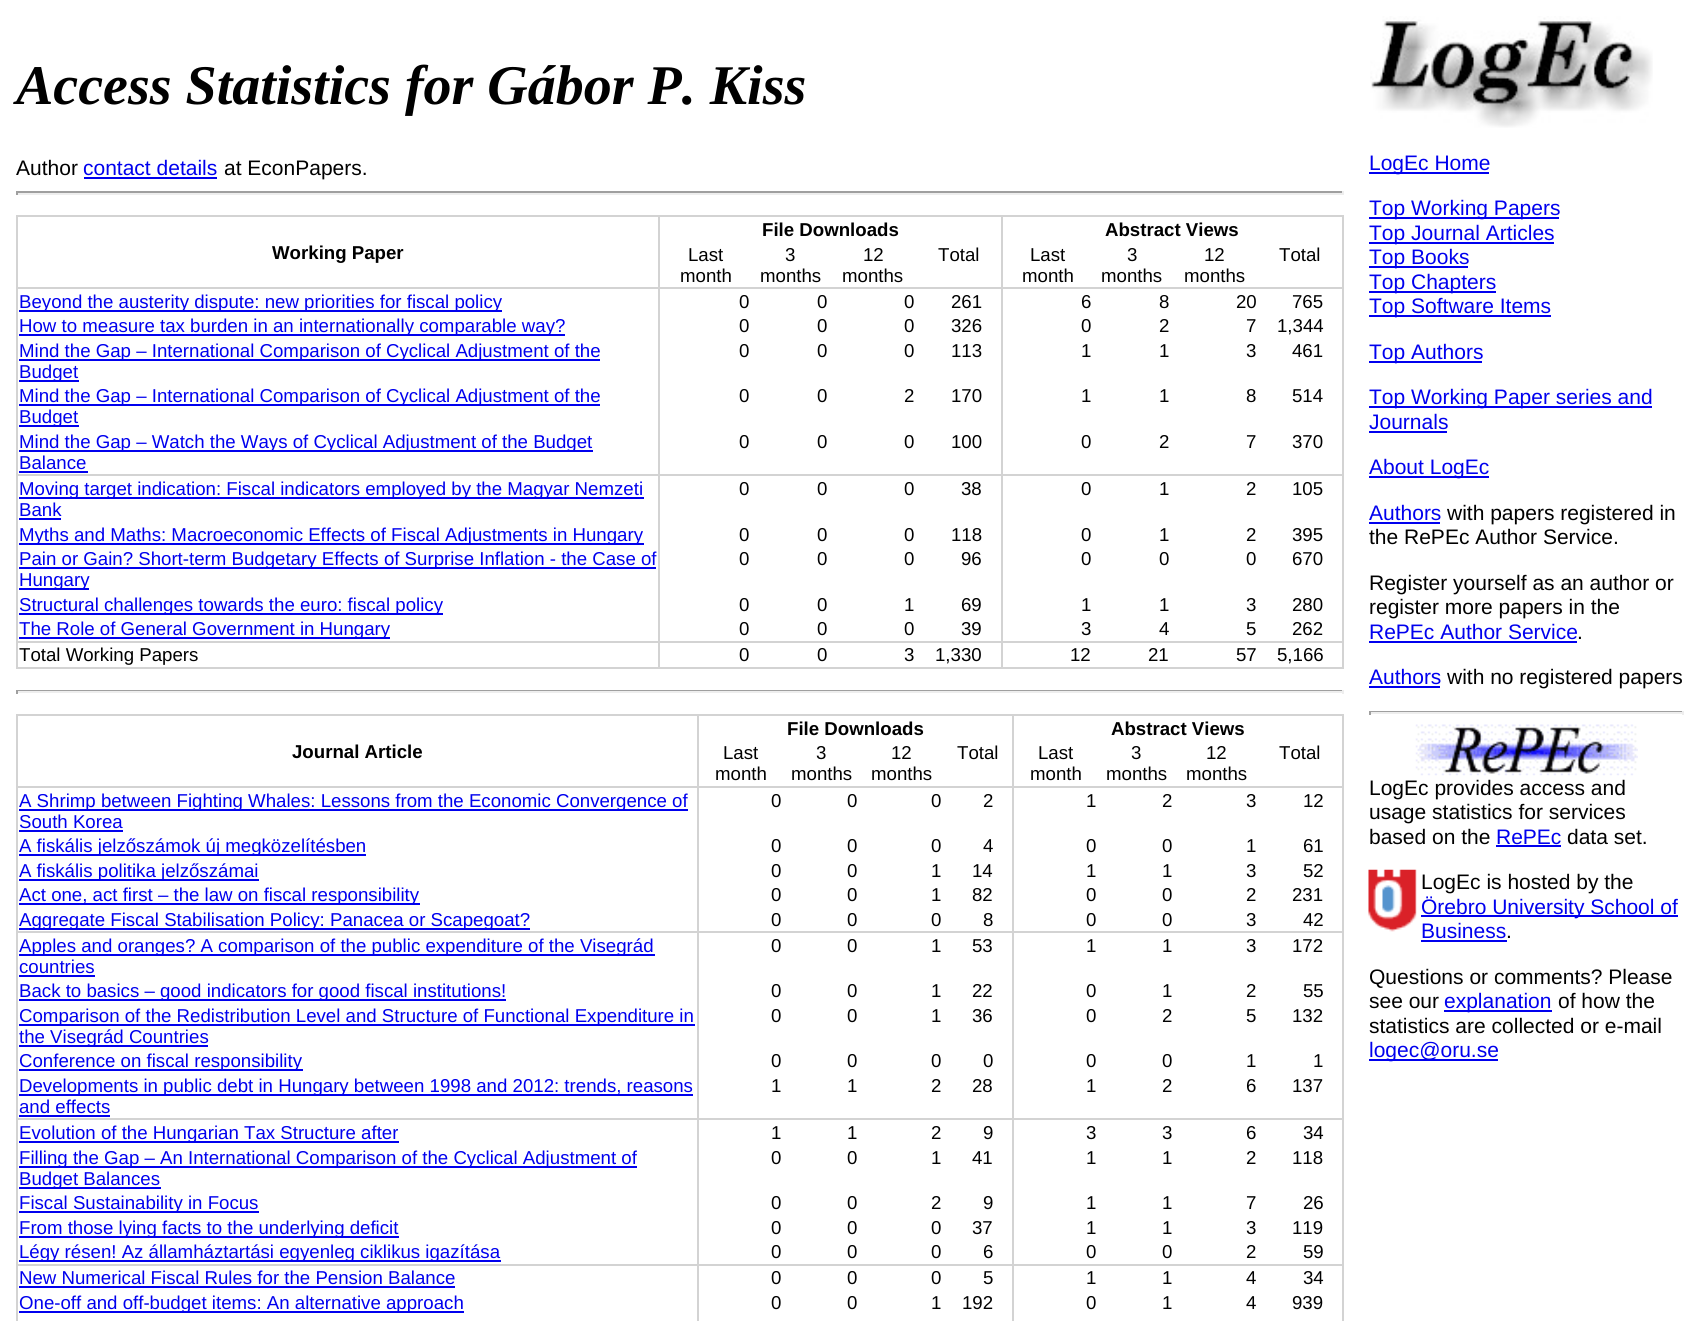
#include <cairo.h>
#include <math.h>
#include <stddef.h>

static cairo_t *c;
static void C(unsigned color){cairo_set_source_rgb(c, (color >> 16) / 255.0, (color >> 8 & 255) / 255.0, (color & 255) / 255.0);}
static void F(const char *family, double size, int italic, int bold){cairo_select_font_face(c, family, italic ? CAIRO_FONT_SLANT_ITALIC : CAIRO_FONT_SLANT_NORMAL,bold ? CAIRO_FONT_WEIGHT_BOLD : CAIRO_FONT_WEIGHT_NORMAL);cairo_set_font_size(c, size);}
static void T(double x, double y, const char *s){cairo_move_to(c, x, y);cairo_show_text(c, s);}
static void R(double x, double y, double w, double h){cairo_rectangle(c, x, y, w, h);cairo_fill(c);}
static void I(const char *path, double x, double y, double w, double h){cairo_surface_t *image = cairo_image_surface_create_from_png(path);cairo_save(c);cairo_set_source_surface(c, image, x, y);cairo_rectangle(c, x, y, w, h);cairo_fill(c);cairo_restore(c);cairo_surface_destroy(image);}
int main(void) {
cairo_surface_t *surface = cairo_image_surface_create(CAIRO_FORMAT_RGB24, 1698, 1321);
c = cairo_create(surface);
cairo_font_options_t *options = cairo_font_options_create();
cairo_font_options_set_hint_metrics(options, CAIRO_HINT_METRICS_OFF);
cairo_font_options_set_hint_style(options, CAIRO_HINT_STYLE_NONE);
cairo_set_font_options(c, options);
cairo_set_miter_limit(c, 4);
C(0xffffff);
cairo_paint(c);
F("Liberation Serif",56,1,1);
C(0x000000);
T(16,104,"Access Statistics for Gábor P. Kiss");
F("Liberation Sans",21,0,0);
T(16,175,"Author");
C(0x0000ee);
T(83,175,"contact details");
R(84,177,133,2);
C(0x000000);
T(224,175,"at EconPapers.");
C(0x9f9f9f);
R(16,191,1328,2);
C(0xeeeeee);
R(1342,191,2,4);
R(16,193,1328,2);
C(0x9f9f9f);
R(16,191,2,4);
C(0xd3d3d3);
R(658,215,2,454);
R(16,215,2,454);
R(1001,215,2,454);
R(1342,215,2,454);
R(16,215,1328,2);
F("Liberation Sans",18.65,0,1);
C(0x000000);
T(762,236,"File Downloads");
T(1105,236,"Abstract Views");
T(272,259,"Working Paper");
C(0xd3d3d3);
R(16,287,1328,2);
F("Liberation Sans",18.65,0,0);
C(0x000000);
T(688,261,"Last");
T(680,282,"month");
T(785,261,"3");
T(760,282,"months");
T(863,261,"12");
T(842,282,"months");
T(938,261,"Total");
T(1030,261,"Last");
T(1022,282,"month");
T(1127,261,"3");
T(1101,282,"months");
T(1204,261,"12");
T(1184,282,"months");
T(1279,261,"Total");
C(0x0000ee);
R(19,310,483,2);
T(19,308,"Beyond the austerity dispute: new priorities for fiscal policy");
C(0x000000);
T(739,308,"0");
T(817,308,"0");
T(904,308,"0");
T(951,308,"261");
T(1081,308,"6");
T(1159,308,"8");
T(1236,308,"20");
T(1292,308,"765");
C(0x0000ee);
R(19,334,546,2);
T(19,332,"How to measure tax burden in an internationally comparable way?");
C(0x000000);
T(739,332,"0");
T(817,332,"0");
T(904,332,"0");
T(951,332,"326");
T(1081,332,"0");
T(1159,332,"2");
T(1246,332,"7");
T(1277,332,"1,344");
C(0x0000ee);
R(19,359,581,2);
T(19,357,"Mind the Gap – International Comparison of Cyclical Adjustment of the");
R(19,380,60,2);
T(19,378,"Budget");
C(0x000000);
T(739,357,"0");
T(817,357,"0");
T(904,357,"0");
T(951,357,"113");
T(1081,357,"1");
T(1159,357,"1");
T(1246,357,"3");
T(1292,357,"461");
C(0x0000ee);
R(19,404,581,2);
T(19,402,"Mind the Gap – International Comparison of Cyclical Adjustment of the");
R(19,425,60,2);
T(19,423,"Budget");
C(0x000000);
T(739,402,"0");
T(817,402,"0");
T(904,402,"2");
T(951,402,"170");
T(1081,402,"1");
T(1159,402,"1");
T(1246,402,"8");
T(1292,402,"514");
C(0xd3d3d3);
R(16,474,1328,2);
C(0x0000ee);
R(19,450,574,2);
T(19,448,"Mind the Gap – Watch the Ways of Cyclical Adjustment of the Budget");
T(19,469,"Balance");
R(19,471,69,2);
C(0x000000);
T(739,448,"0");
T(817,448,"0");
T(904,448,"0");
T(951,448,"100");
T(1081,448,"0");
T(1159,448,"2");
T(1246,448,"7");
T(1292,448,"370");
C(0x0000ee);
R(19,497,625,2);
T(19,495,"Moving target indication: Fiscal indicators employed by the Magyar Nemzeti");
T(19,516,"Bank");
R(19,518,42,2);
C(0x000000);
T(739,495,"0");
T(817,495,"0");
T(904,495,"0");
T(961,495,"38");
T(1081,495,"0");
T(1159,495,"1");
T(1246,495,"2");
T(1292,495,"105");
C(0x0000ee);
R(19,543,625,2);
T(19,541,"Myths and Maths: Macroeconomic Effects of Fiscal Adjustments in Hungary");
C(0x000000);
T(739,541,"0");
T(817,541,"0");
T(904,541,"0");
T(951,541,"118");
T(1081,541,"0");
T(1159,541,"1");
T(1246,541,"2");
T(1292,541,"395");
C(0x0000ee);
R(19,567,637,2);
T(19,565,"Pain or Gain? Short-term Budgetary Effects of Surprise Inflation - the Case of");
R(19,588,70,2);
T(19,586,"Hungary");
C(0x000000);
T(739,565,"0");
T(817,565,"0");
T(904,565,"0");
T(961,565,"96");
T(1081,565,"0");
T(1159,565,"0");
T(1246,565,"0");
T(1292,565,"670");
C(0x0000ee);
R(19,613,424,2);
T(19,611,"Structural challenges towards the euro: fiscal policy");
C(0x000000);
T(739,611,"0");
T(817,611,"0");
T(904,611,"1");
T(961,611,"69");
T(1081,611,"1");
T(1159,611,"1");
T(1246,611,"3");
T(1292,611,"280");
C(0xd3d3d3);
R(16,641,1328,2);
C(0x0000ee);
R(19,637,371,2);
T(19,635,"The Role of General Government in Hungary");
C(0x000000);
T(739,635,"0");
T(817,635,"0");
T(904,635,"0");
T(961,635,"39");
T(1081,635,"3");
T(1159,635,"4");
T(1246,635,"5");
T(1292,635,"262");
C(0xd3d3d3);
R(16,667,1328,2);
C(0x000000);
T(19,661,"Total Working Papers");
T(739,661,"0");
T(817,661,"0");
T(904,661,"3");
T(935,661,"1,330");
T(1070,661,"12");
T(1148,661,"21");
T(1236,661,"57");
T(1277,661,"5,166");
C(0x9f9f9f);
R(16,690,1328,1);
C(0xeeeeee);
R(1342,690,2,4);
R(16,691,1328,2);
C(0x9f9f9f);
R(16,690,2,4);
C(0xd3d3d3);
R(697,714,2,607);
R(16,714,2,607);
R(1012,714,2,607);
R(1342,714,2,607);
R(16,714,1328,2);
F("Liberation Sans",18.65,0,1);
C(0x000000);
T(787,735,"File Downloads");
T(1111,735,"Abstract Views");
T(292,758,"Journal Article");
C(0xd3d3d3);
R(16,786,1328,2);
F("Liberation Sans",18.65,0,0);
C(0x000000);
T(723,759,"Last");
T(715,780,"month");
T(816,759,"3");
T(791,780,"months");
T(891,759,"12");
T(871,780,"months");
T(957,759,"Total");
T(1038,759,"Last");
T(1030,780,"month");
T(1131,759,"3");
T(1106,780,"months");
T(1206,759,"12");
T(1186,780,"months");
T(1279,759,"Total");
C(0x0000ee);
R(19,809,669,2);
T(19,807,"A Shrimp between Fighting Whales: Lessons from the Economic Convergence of");
T(19,828,"South Korea");
R(19,830,104,2);
C(0x000000);
T(771,807,"0");
T(847,807,"0");
T(931,807,"0");
T(983,807,"2");
T(1086,807,"1");
T(1162,807,"2");
T(1246,807,"3");
T(1303,807,"12");
C(0x0000ee);
R(19,854,347,2);
T(19,852,"A fiskális jelzőszámok új megközelítésben");
C(0x000000);
T(771,852,"0");
T(847,852,"0");
T(931,852,"0");
T(983,852,"4");
T(1086,852,"0");
T(1162,852,"0");
T(1246,852,"1");
T(1303,852,"61");
C(0x0000ee);
R(19,879,240,2);
T(19,877,"A fiskális politika jelzőszámai");
C(0x000000);
T(771,877,"0");
T(847,877,"0");
T(931,877,"1");
T(972,877,"14");
T(1086,877,"1");
T(1162,877,"1");
T(1246,877,"3");
T(1303,877,"52");
C(0x0000ee);
R(19,903,401,2);
T(19,901,"Act one, act first – the law on fiscal responsibility");
C(0x000000);
T(771,901,"0");
T(847,901,"0");
T(931,901,"1");
T(972,901,"82");
T(1086,901,"0");
T(1162,901,"0");
T(1246,901,"2");
T(1292,901,"231");
C(0xd3d3d3);
R(16,931,1328,2);
C(0x0000ee);
R(19,928,511,2);
T(19,926,"Aggregate Fiscal Stabilisation Policy: Panacea or Scapegoat?");
C(0x000000);
T(771,926,"0");
T(847,926,"0");
T(931,926,"0");
T(983,926,"8");
T(1086,926,"0");
T(1162,926,"0");
T(1246,926,"3");
T(1303,926,"42");
C(0x0000ee);
R(19,954,636,2);
T(19,952,"Apples and oranges? A comparison of the public expenditure of the Visegrád");
T(19,973,"countries");
R(19,975,76,2);
C(0x000000);
T(771,952,"0");
T(847,952,"0");
T(931,952,"1");
T(972,952,"53");
T(1086,952,"1");
T(1162,952,"1");
T(1246,952,"3");
T(1292,952,"172");
C(0x0000ee);
R(19,999,487,2);
T(19,997,"Back to basics – good indicators for good fiscal institutions!");
C(0x000000);
T(771,997,"0");
T(847,997,"0");
T(931,997,"1");
T(972,997,"22");
T(1086,997,"0");
T(1162,997,"1");
T(1246,997,"2");
T(1303,997,"55");
C(0x0000ee);
R(19,1024,676,2);
T(19,1022,"Comparison of the Redistribution Level and Structure of Functional Expenditure in");
R(19,1045,189,2);
T(19,1043,"the Visegrád Countries");
C(0x000000);
T(771,1022,"0");
T(847,1022,"0");
T(931,1022,"1");
T(972,1022,"36");
T(1086,1022,"0");
T(1162,1022,"2");
T(1246,1022,"5");
T(1292,1022,"132");
C(0x0000ee);
R(19,1069,284,2);
T(19,1067,"Conference on fiscal responsibility");
C(0x000000);
T(771,1067,"0");
T(847,1067,"0");
T(931,1067,"0");
T(983,1067,"0");
T(1086,1067,"0");
T(1162,1067,"0");
T(1246,1067,"1");
T(1313,1067,"1");
C(0xd3d3d3);
R(16,1118,1328,2);
C(0x0000ee);
R(19,1094,674,2);
T(19,1092,"Developments in public debt in Hungary between 1998 and 2012: trends, reasons");
T(19,1113,"and effects");
R(19,1115,91,2);
C(0x000000);
T(771,1092,"1");
T(847,1092,"1");
T(931,1092,"2");
T(972,1092,"28");
T(1086,1092,"1");
T(1162,1092,"2");
T(1246,1092,"6");
T(1292,1092,"137");
C(0x0000ee);
R(19,1141,380,2);
T(19,1139,"Evolution of the Hungarian Tax Structure after");
C(0x000000);
T(771,1139,"1");
T(847,1139,"1");
T(931,1139,"2");
T(983,1139,"9");
T(1086,1139,"3");
T(1162,1139,"3");
T(1246,1139,"6");
T(1303,1139,"34");
C(0x0000ee);
R(19,1166,618,2);
T(19,1164,"Filling the Gap – An International Comparison of the Cyclical Adjustment of");
R(19,1187,142,2);
T(19,1185,"Budget Balances");
C(0x000000);
T(771,1164,"0");
T(847,1164,"0");
T(931,1164,"1");
T(972,1164,"41");
T(1086,1164,"1");
T(1162,1164,"1");
T(1246,1164,"2");
T(1292,1164,"118");
C(0x0000ee);
R(19,1211,240,2);
T(19,1209,"Fiscal Sustainability in Focus");
C(0x000000);
T(771,1209,"0");
T(847,1209,"0");
T(931,1209,"2");
T(983,1209,"9");
T(1086,1209,"1");
T(1162,1209,"1");
T(1246,1209,"7");
T(1303,1209,"26");
C(0x0000ee);
R(19,1236,380,2);
T(19,1234,"From those lying facts to the underlying deficit");
C(0x000000);
T(771,1234,"0");
T(847,1234,"0");
T(931,1234,"0");
T(972,1234,"37");
T(1086,1234,"1");
T(1162,1234,"1");
T(1246,1234,"3");
T(1292,1234,"119");
C(0xd3d3d3);
R(16,1264,1328,2);
C(0x0000ee);
R(19,1260,482,2);
T(19,1258,"Légy résen! Az államháztartási egyenleg ciklikus igazítása");
C(0x000000);
T(771,1258,"0");
T(847,1258,"0");
T(931,1258,"0");
T(983,1258,"6");
T(1086,1258,"0");
T(1162,1258,"0");
T(1246,1258,"2");
T(1303,1258,"59");
C(0x0000ee);
T(19,1284,"New Numerical Fiscal Rules for the Pension Balance");
R(19,1286,436,2);
C(0x000000);
T(771,1284,"0");
T(847,1284,"0");
T(931,1284,"0");
T(983,1284,"5");
T(1086,1284,"1");
T(1162,1284,"1");
T(1246,1284,"4");
T(1303,1284,"34");
C(0x0000ee);
R(19,1311,445,2);
T(19,1309,"One-off and off-budget items: An alternative approach");
C(0x000000);
T(771,1309,"0");
T(847,1309,"0");
T(931,1309,"1");
T(962,1309,"192");
T(1086,1309,"0");
T(1162,1309,"1");
T(1246,1309,"4");
T(1292,1309,"939");
I("1.png",1370,16,283,112);
C(0x0000ee);
R(1369,172,120,2);
F("Liberation Sans",21,0,0);
T(1369,170,"LogEc Home");
R(1369,217,190,2);
T(1369,215,"Top Working Papers");
R(1369,242,185,2);
T(1369,240,"Top Journal Articles");
R(1369,266,99,2);
T(1369,264,"Top Books");
R(1369,291,127,2);
T(1369,289,"Top Chapters");
R(1369,315,182,2);
T(1369,313,"Top Software Items");
R(1369,361,113,2);
T(1369,359,"Top Authors");
R(1369,406,283,2);
T(1369,404,"Top Working Paper series and");
T(1369,429,"Journals");
R(1369,431,78,2);
R(1369,476,120,2);
T(1369,474,"About LogEc");
T(1369,520,"Authors");
R(1369,522,71,2);
C(0x000000);
T(1447,520,"with papers registered in");
T(1369,544,"the RePEc Author Service.");
T(1369,590,"Register yourself as an author or");
T(1369,614,"register more papers in the");
C(0x0000ee);
T(1369,639,"RePEc Author Service");
R(1369,641,208,2);
C(0x000000);
T(1577,639,".");
C(0x0000ee);
T(1369,684,"Authors");
R(1369,686,71,2);
C(0x000000);
T(1447,684,"with no registered papers");
C(0x9f9f9f);
R(1369,711,315,1);
C(0xeeeeee);
R(1682,711,2,4);
R(1369,712,315,2);
C(0x9f9f9f);
R(1369,711,2,4);
I("2.png",1415,724,223,52);
C(0x000000);
T(1369,795,"LogEc provides access and");
T(1369,819,"usage statistics for services");
T(1369,844,"based on the");
C(0x0000ee);
T(1496,844,"RePEc");
R(1496,845,65,2);
C(0x000000);
T(1567,844,"data set.");
I("3.png",1368,869,49,63);
T(1421,889,"LogEc is hosted by the");
C(0x0000ee);
R(1421,915,257,2);
T(1421,914,"Örebro University School of");
T(1421,938,"Business");
R(1421,940,86,2);
C(0x000000);
T(1506,938,".");
T(1369,984,"Questions or comments? Please");
T(1369,1008,"see our");
C(0x0000ee);
R(1444,1010,108,2);
T(1444,1008,"explanation");
C(0x000000);
T(1558,1008,"of how the");
T(1369,1033,"statistics are collected or e-mail");
C(0x0000ee);
R(1369,1059,129,2);
T(1369,1057,"logec@oru.se");
cairo_surface_write_to_png(surface, "o.png");
cairo_font_options_destroy(options);
cairo_destroy(c);
cairo_surface_destroy(surface);
return 0;
}
